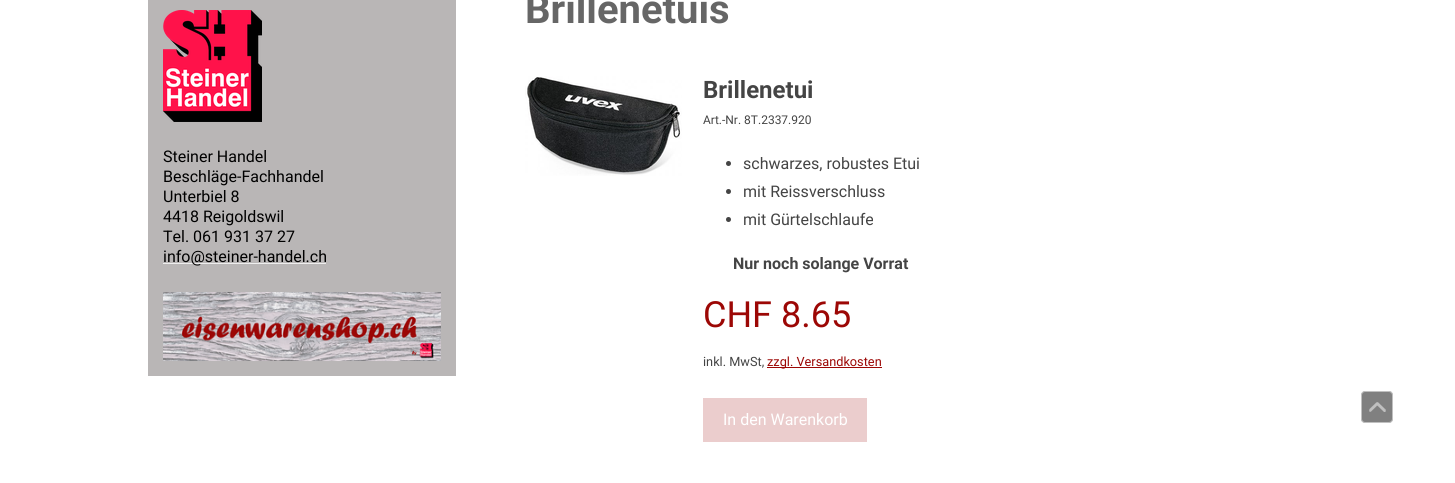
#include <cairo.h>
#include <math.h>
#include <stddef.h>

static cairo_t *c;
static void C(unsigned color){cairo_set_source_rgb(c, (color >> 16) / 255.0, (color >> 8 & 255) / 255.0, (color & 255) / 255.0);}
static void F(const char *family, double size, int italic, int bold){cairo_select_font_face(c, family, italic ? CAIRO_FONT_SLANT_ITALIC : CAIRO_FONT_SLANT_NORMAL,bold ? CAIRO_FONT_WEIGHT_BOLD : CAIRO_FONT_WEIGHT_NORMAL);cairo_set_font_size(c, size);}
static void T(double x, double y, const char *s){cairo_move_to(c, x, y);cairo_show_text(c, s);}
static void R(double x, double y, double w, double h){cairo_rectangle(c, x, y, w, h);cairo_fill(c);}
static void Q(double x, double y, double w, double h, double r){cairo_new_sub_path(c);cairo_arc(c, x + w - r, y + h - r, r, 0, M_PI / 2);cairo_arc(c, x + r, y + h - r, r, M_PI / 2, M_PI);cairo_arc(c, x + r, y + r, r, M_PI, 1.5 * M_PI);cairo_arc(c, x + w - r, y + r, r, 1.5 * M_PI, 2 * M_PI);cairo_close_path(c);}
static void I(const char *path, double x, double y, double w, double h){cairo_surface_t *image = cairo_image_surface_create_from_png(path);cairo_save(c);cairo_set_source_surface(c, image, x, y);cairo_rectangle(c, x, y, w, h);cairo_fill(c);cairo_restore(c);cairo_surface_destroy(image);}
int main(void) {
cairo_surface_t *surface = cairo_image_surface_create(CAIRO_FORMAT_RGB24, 1455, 483);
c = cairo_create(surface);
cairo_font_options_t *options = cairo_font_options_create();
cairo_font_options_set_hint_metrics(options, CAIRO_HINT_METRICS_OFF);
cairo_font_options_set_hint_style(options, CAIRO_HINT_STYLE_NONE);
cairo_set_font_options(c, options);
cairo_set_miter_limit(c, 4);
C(0xffffff);
cairo_paint(c);
C(0xb9b6b6);
R(148,0,308,376);
I("1.png",163,10,99,112);
F("Roboto",16,0,0);
C(0x000000);
T(163,162,"Steiner Handel");
T(163,182,"Beschläge-Fachhandel");
T(163,202,"Unterbiel 8");
T(163,222,"4418 Reigoldswil");
T(163,242,"Tel. 061 931 37 27");
C(0xeeeeee);
R(163,263,163,1);
C(0x000000);
T(163,262,"info@steiner-handel.ch");
I("2.png",163,292,278,69);
F("Roboto",40,0,1);
C(0x666666);
T(525,23,"Brillenetuis");
I("3.png",525,76,157,100);
F("Roboto",24,0,1);
C(0x444444);
T(703,98,"Brillenetui");
F("Roboto",12,0,0);
T(703,124,"Art.-Nr. 8T.2337.920");
cairo_new_path(c);
cairo_arc(c,728.5,163.5,2.5,0,2 * M_PI);
cairo_fill(c);
F("Roboto",16,0,0);
T(743,169,"schwarzes, robustes Etui");
cairo_new_path(c);
cairo_arc(c,728.5,191.5,2.5,0,2 * M_PI);
cairo_fill(c);
T(743,197,"mit Reissverschluss");
cairo_new_path(c);
cairo_arc(c,728.5,219.5,2.5,0,2 * M_PI);
cairo_fill(c);
T(743,225,"mit Gürtelschlaufe");
F("Roboto",16,0,1);
T(733,269,"Nur noch solange Vorrat");
F("Roboto",36,0,0);
C(0x9c0705);
T(703,327,"CHF 8.65");
F("Roboto",12.75,0,0);
C(0x444444);
T(703,366,"inkl. MwSt,");
C(0x9c0705);
R(767,367,115,1);
T(767,366,"zzgl. Versandkosten");
C(0xebcdcd);
R(703,398,164,44);
F("Roboto",16,0,0);
C(0xffffff);
T(723,425,"In den Warenkorb");
C(0x808080);
Q(1361,391,32,32,4);
cairo_fill(c);
Q(1361.5,391.5,31,31,3.5);
cairo_set_source_rgba(c,1,1,1,0.5);
cairo_set_line_width(c,1);
cairo_stroke(c);
I("4.png",1369,402,17,10);
cairo_surface_write_to_png(surface, "o.png");
cairo_font_options_destroy(options);
cairo_destroy(c);
cairo_surface_destroy(surface);
return 0;
}
